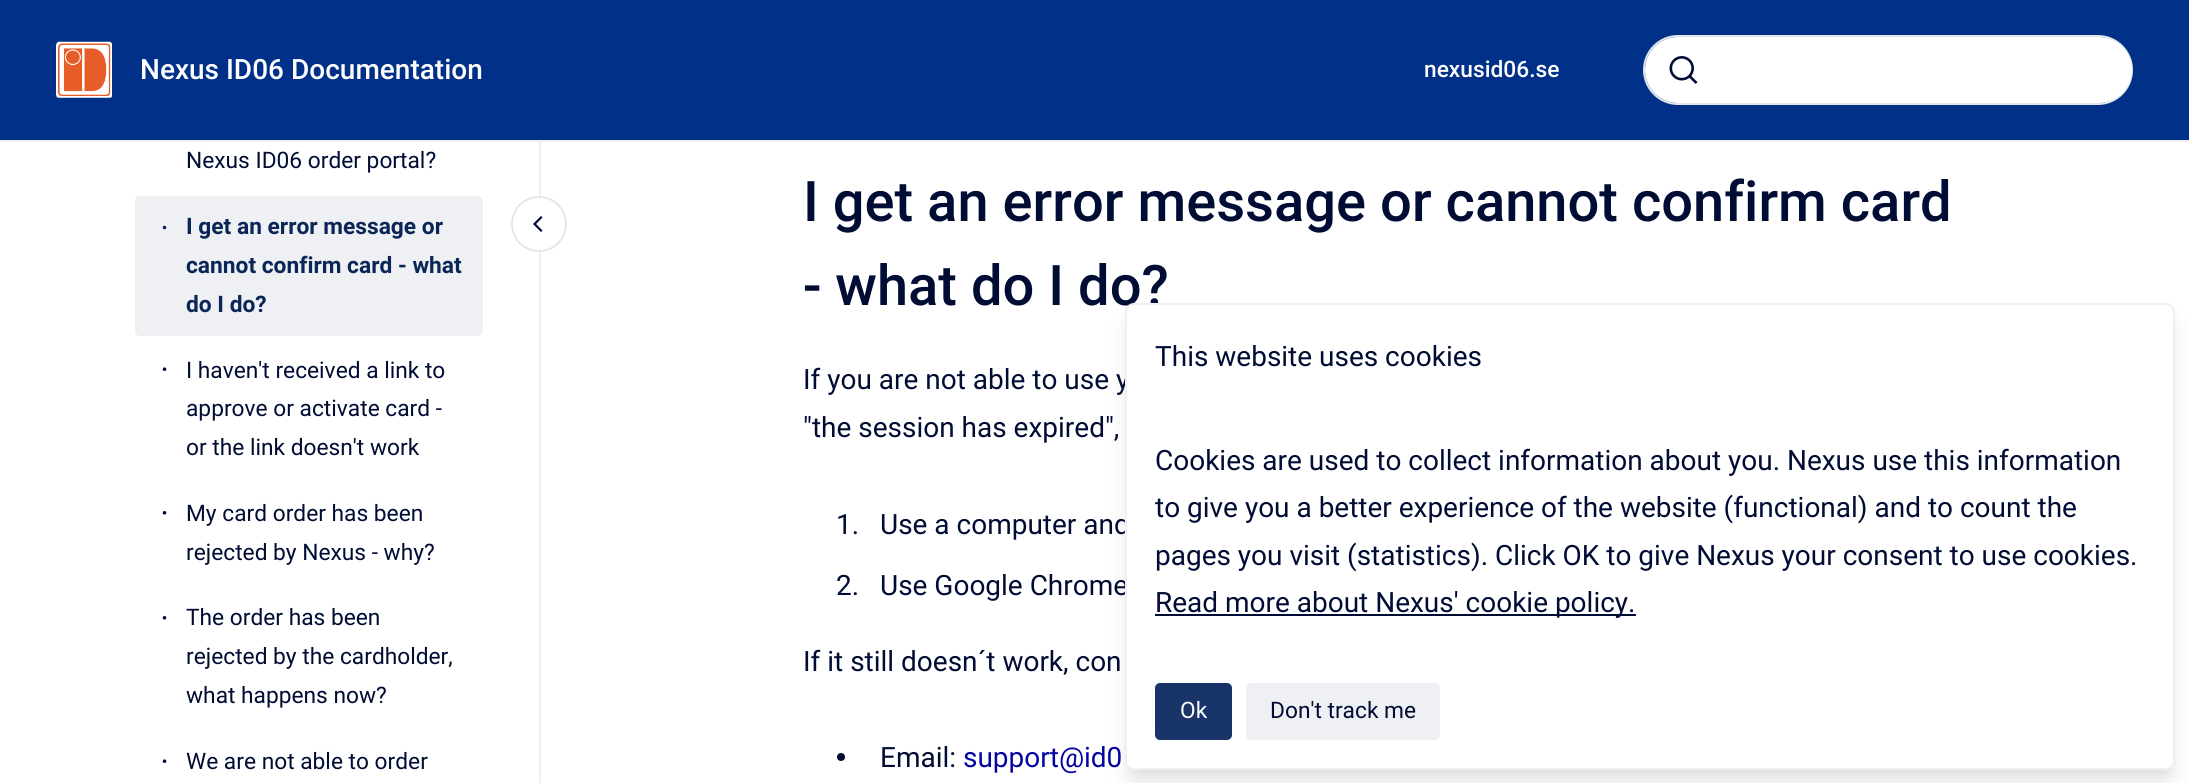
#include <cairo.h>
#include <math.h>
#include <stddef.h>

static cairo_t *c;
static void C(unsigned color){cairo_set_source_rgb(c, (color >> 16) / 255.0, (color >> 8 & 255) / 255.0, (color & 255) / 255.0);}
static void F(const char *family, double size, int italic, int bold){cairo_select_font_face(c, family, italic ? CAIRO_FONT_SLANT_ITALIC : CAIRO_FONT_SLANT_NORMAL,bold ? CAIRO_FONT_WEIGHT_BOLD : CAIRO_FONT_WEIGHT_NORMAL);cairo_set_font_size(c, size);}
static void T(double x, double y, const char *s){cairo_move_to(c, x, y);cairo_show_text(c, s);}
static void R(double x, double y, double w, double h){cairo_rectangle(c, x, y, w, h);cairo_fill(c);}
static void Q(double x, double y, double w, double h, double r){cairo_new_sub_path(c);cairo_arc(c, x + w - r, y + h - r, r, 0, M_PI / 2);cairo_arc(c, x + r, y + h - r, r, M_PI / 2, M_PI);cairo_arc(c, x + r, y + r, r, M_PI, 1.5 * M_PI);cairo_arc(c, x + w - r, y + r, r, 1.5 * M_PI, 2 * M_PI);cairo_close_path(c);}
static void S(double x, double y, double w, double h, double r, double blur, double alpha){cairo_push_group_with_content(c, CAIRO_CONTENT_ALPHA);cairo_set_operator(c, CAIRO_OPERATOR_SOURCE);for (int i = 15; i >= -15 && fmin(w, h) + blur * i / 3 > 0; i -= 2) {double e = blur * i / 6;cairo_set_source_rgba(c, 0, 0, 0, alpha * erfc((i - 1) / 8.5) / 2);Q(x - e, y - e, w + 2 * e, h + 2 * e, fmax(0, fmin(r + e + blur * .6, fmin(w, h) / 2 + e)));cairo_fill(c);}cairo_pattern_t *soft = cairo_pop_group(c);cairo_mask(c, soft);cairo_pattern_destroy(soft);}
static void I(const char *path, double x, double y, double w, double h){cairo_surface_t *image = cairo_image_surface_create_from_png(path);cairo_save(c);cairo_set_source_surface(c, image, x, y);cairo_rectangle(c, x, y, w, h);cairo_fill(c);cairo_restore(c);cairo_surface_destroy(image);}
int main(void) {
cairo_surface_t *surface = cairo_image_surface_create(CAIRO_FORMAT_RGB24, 2189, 783);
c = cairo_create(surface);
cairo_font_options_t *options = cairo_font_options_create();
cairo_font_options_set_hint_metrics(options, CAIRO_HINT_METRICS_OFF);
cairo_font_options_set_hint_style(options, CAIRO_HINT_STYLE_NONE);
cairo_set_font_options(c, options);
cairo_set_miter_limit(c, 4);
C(0xffffff);
cairo_paint(c);
C(0x003088);
R(0,0,2189,140);
C(0xeff0f4);
R(0,140,2189,2);
I("1.png",56,41,56,57);
F("Roboto Medium",28,0,0);
C(0xffffff);
T(140,79,"Nexus ID06 Documentation");
F("Roboto Medium",22.75,0,0);
T(1424,77,"nexusid06.se");
Q(1644,36,488,68,34);
C(0xe2e5eb);
cairo_stroke(c);
C(0xffffff);
Q(1645,37,487,66,33);
cairo_fill(c);
I("2.png",1669,56,29,28);
C(0xeff0f4);
R(539,142,2,641);
F("Roboto",22.75,0,0);
C(0x000c34);
T(186,168,"Nexus ID06 order portal?");
C(0xeff0f4);
Q(135,196,348,140,5);
cairo_fill(c);
C(0x0a2656);
cairo_arc(c,164.5,227.5,1.8,0,2 * M_PI);
cairo_fill(c);
F("Roboto",22.75,0,1);
T(186,234,"I get an error message or");
T(186,273,"cannot confirm card - what");
T(186,312,"do I do?");
C(0x000c34);
cairo_new_path(c);
cairo_arc(c,164.5,369.2,1.8,0,2 * M_PI);
cairo_fill(c);
F("Roboto",22.75,0,0);
T(186,378,"I haven't received a link to");
T(186,416,"approve or activate card -");
T(186,455,"or the link doesn't work");
cairo_new_path(c);
cairo_arc(c,164.5,512.8,1.8,0,2 * M_PI);
cairo_fill(c);
T(186,521,"My card order has been");
T(186,560,"rejected by Nexus - why?");
cairo_new_path(c);
cairo_arc(c,164.5,617.8,1.8,0,2 * M_PI);
cairo_fill(c);
T(186,625,"The order has been");
T(186,664,"rejected by the cardholder,");
T(186,703,"what happens now?");
cairo_new_path(c);
cairo_arc(c,164.5,761.2,1.8,0,2 * M_PI);
cairo_fill(c);
T(186,769,"We are not able to order");
C(0xffffff);
cairo_new_path(c);
cairo_move_to(c,539,252);
cairo_curve_to(c,524,252,511,239,511,224);
cairo_curve_to(c,511,209,524,196,539,196);
cairo_curve_to(c,554,196,567,209,567,224);
cairo_curve_to(c,567,239,554,252,539,252);
cairo_close_path(c);
cairo_fill(c);
cairo_new_path(c);
cairo_move_to(c,539,251);
cairo_curve_to(c,524,251,512,239,512,224);
cairo_curve_to(c,512,209,524,197,539,197);
cairo_curve_to(c,554,197,566,209,566,224);
cairo_curve_to(c,566,239,554,251,539,251);
cairo_close_path(c);
C(0xe2e5eb);
cairo_set_line_width(c,1.8);
cairo_stroke(c);
cairo_new_path(c);
cairo_move_to(c,541,230.5);
cairo_line_to(c,534.5,224);
cairo_line_to(c,541,217.5);
C(0x000c34);
cairo_set_line_width(c,2.2);
cairo_set_line_cap(c,CAIRO_LINE_CAP_SQUARE);
cairo_stroke(c);
F("Roboto Medium",56,0,0);
T(803,221,"I get an error message or cannot confirm card");
T(803,305,"- what do I do?");
F("Roboto",28,0,0);
T(803,389,"If you are not able to use y");
T(803,437,"\"the session has expired\",");
T(836,534,"1.");
T(880,534,"Use a computer and");
T(836,595,"2.");
T(880,595,"Use Google Chrome");
T(803,671,"If it still doesn´t work, con");
cairo_new_path(c);
cairo_arc(c,841,757,4,0,2 * M_PI);
cairo_fill(c);
T(880,767,"Email:");
C(0x0404a3);
T(963,767,"support@id0");
C(0x000000);
S(1129,313,1043,461,5,5,.05);
S(1131,326,1039,456,4,13,.1);
C(0xffffff);
Q(1126,304,1048,465,8);
cairo_fill_preserve(c);
C(0xeff0f4);
cairo_set_line_width(c,2);
cairo_set_line_cap(c,CAIRO_LINE_CAP_BUTT);
cairo_stroke(c);
C(0x000c34);
T(1155,366,"This website uses cookies");
T(1155,470,"Cookies are used to collect information about you. Nexus use this information");
T(1155,517,"to give you a better experience of the website (functional) and to count the");
T(1155,565,"pages you visit (statistics). Click OK to give Nexus your consent to use cookies.");
R(1155,614,481,2);
T(1155,612,"Read more about Nexus' cookie policy.");
C(0x193468);
Q(1155,683,77,57,5);
cairo_fill(c);
F("Roboto",22.75,0,0);
C(0xffffff);
T(1180,718,"Ok");
C(0xeff0f4);
Q(1246,683,194,57,5);
cairo_fill(c);
C(0x000c34);
T(1270,718,"Don't track me");
cairo_surface_write_to_png(surface, "o.png");
cairo_font_options_destroy(options);
cairo_destroy(c);
cairo_surface_destroy(surface);
return 0;
}
